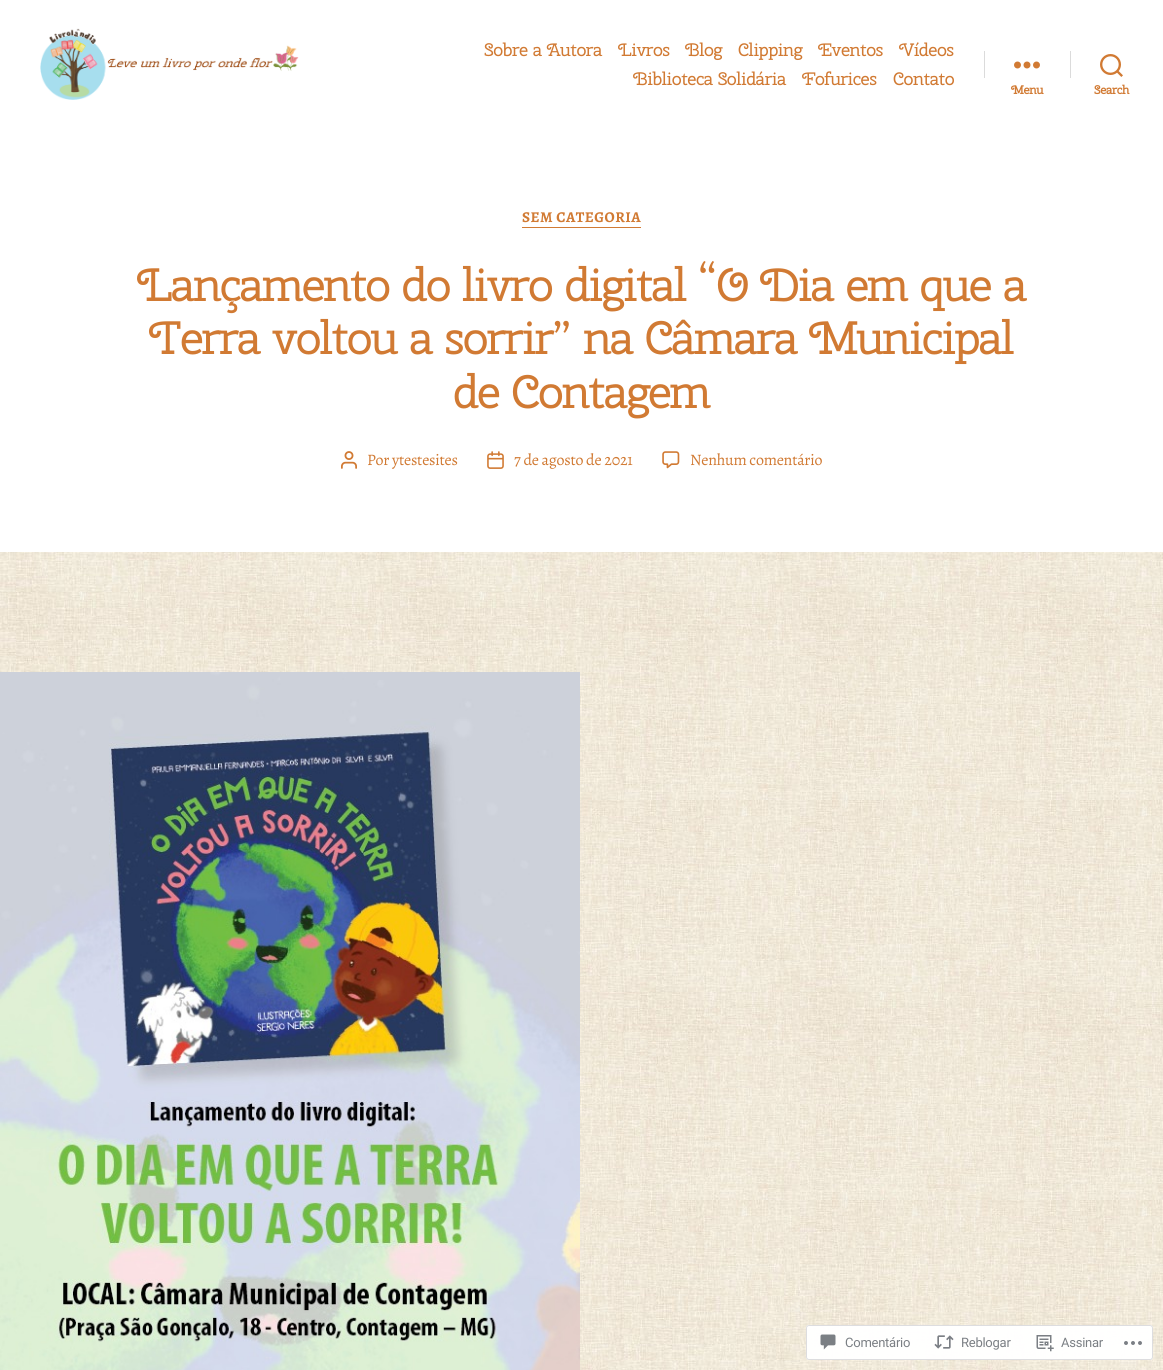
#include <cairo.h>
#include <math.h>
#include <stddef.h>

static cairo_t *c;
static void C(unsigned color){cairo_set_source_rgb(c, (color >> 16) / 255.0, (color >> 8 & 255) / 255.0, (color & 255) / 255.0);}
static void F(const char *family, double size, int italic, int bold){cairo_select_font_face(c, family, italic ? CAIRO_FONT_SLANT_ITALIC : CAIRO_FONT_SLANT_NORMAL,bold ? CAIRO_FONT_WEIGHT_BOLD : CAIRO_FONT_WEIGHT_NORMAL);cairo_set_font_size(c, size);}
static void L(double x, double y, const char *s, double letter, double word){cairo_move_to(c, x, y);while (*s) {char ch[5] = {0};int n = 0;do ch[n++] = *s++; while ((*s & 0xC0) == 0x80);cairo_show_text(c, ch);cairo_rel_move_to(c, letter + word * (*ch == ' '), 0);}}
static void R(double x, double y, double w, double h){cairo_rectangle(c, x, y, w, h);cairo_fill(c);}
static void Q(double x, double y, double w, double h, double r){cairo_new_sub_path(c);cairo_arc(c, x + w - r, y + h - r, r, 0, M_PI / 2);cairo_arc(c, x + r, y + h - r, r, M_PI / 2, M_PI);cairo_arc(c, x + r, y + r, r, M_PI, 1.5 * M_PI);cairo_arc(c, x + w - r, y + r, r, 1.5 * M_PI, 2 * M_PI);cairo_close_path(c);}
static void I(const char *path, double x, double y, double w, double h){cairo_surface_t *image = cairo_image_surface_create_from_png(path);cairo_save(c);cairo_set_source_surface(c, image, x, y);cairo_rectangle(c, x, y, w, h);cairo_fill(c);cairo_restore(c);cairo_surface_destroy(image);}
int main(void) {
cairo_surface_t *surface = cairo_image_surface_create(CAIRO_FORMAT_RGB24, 1163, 1370);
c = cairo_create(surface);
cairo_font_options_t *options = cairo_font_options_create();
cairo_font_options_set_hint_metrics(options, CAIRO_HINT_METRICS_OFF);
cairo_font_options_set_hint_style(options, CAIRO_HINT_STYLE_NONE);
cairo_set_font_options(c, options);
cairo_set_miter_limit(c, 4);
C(0xffffff);
cairo_paint(c);
I("1.png",0,552,1163,818);
I("2.png",40,28,259,72);
F("Cherry Swash",18,0,0);
C(0xd17a33);
L(484,56,"Sobre a Autora",-.5,0);
L(618,56,"Livros",-.5,0);
L(685,56,"Blog",-.5,0);
L(738,56,"Clipping",-.5,0);
L(818,56,"Eventos",-.5,0);
L(899,56,"Vídeos",-.5,0);
L(633,85,"Biblioteca Solidária",-.5,0);
L(802,85,"Fofurices",-.5,0);
L(893,85,"Contato",-.5,0);
C(0xdbdbdb);
R(984,51,1,27);
I("3.png",1014,61,26,8);
F("Cherry Swash",12,0,1);
C(0xd17a33);
L(1011,94,"Menu",-.25,0);
C(0xdbdbdb);
R(1070,51,1,27);
I("4.png",1100,54,23,23);
C(0xd17a33);
L(1094,94,"Search",-.25,0);
R(522,227,119,1);
F("Alegreya",15,0,1);
L(522,222,"SEM CATEGORIA",.5,0);
F("Cherry Swash",46.75,0,0);
L(137,301,"Lançamento do livro digital “O Dia em que a",-1.95,0);
L(149,354,"Terra voltou a sorrir” na Câmara Municipal",-1.95,0);
L(453,408,"de Contagem",-1.95,0);
I("5.png",341,451,16,18);
F("Alegreya",16,0,0);
L(367,465,"Por ytestesites",-.25,0);
I("6.png",487,451,17,18);
L(514,465,"7 de agosto de 2021",-.25,0);
I("7.png",662,451,18,18);
L(690,465,"Nenhum comentário",-.25,0);
I("8.png",0,672,580,698);
cairo_set_source_rgba(c,1,1,1,0.98);
Q(806,1325,347,35,3);
cairo_fill(c);
Q(806.5,1325.5,346,34,2.5);
cairo_set_source_rgba(c,0.863,0.863,0.871,0.98);
cairo_set_line_width(c,1);
cairo_stroke(c);
I("9.png",820,1334,16,16);
F("Roboto",13,0,0);
C(0x7b7f84);
L(845,1347,"Comentário",-.25,0);
I("10.png",934,1335,20,14);
L(961,1347,"Reblogar",-.25,0);
I("11.png",1036,1335,18,17);
L(1061,1347,"Assinar",-.25,0);
I("12.png",1124,1341,18,4);
cairo_surface_write_to_png(surface, "o.png");
cairo_font_options_destroy(options);
cairo_destroy(c);
cairo_surface_destroy(surface);
return 0;
}
